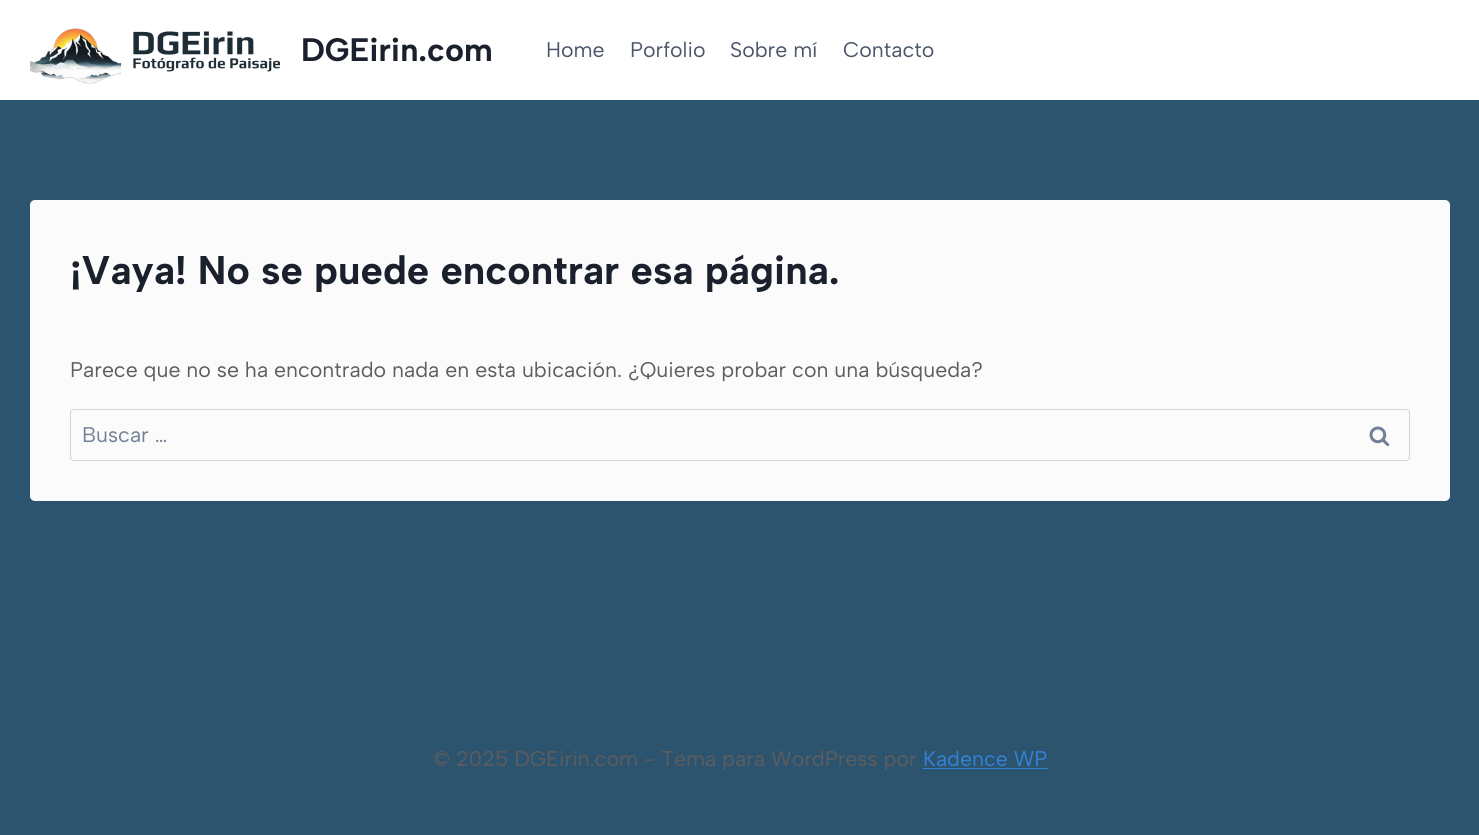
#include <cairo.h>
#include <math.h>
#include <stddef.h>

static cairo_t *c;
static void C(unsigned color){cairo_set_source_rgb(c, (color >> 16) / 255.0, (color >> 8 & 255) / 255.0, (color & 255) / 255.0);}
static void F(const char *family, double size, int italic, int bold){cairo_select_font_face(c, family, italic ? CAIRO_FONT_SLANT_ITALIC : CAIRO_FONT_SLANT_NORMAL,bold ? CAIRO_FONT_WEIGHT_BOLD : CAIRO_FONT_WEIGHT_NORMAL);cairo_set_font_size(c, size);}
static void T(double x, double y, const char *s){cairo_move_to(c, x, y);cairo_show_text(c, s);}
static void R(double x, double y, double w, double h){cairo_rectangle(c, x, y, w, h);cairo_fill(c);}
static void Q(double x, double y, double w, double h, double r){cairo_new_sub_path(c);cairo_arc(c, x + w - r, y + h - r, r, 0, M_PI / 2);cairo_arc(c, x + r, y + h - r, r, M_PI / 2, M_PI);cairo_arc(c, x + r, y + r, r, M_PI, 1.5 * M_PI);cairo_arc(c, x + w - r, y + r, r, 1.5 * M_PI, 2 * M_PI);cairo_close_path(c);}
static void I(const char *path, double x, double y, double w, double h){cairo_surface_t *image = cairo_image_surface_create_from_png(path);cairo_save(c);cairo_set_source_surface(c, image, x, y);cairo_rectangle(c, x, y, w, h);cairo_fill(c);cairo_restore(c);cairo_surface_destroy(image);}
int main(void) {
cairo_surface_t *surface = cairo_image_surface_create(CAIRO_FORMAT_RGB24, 1479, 835);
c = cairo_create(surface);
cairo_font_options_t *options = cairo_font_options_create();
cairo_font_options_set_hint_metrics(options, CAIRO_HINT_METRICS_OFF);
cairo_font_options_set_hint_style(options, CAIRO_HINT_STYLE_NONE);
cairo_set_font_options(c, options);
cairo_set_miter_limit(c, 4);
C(0x2c546f);
cairo_paint(c);
C(0xffffff);
R(0,0,1479,100);
I("1.png",30,28,250,56);
F("Albert Sans",32.5,0,1);
C(0x1a202c);
T(301,61,"DGEirin.com");
F("Albert Sans",21.25,0,0);
C(0x4a5568);
T(546,57,"Home");
T(630,57,"Porfolio");
T(730,57,"Sobre mí");
T(843,57,"Contacto");
C(0xfbfbfb);
Q(30,200,1420,301,5);
cairo_fill(c);
F("Albert Sans",40,0,1);
C(0x1a202c);
T(70,284,"¡Vaya! No se puede encontrar esa página.");
F("Albert Sans",21.25,0,0);
C(0x5d5d5d);
T(70,377,"Parece que no se ha encontrado nada en esta ubicación. ¿Quieres probar con una búsqueda?");
Q(70.5,409.5,1339,51,3.5);
C(0xcbd5e0);
cairo_set_line_width(c,1);
cairo_stroke(c);
C(0x718096);
T(82,442,"Buscar …");
I("2.png",1369,426,21,20);
C(0x5d5d5d);
T(433,766,"© 2025 DGEirin.com - Tema para WordPress por");
C(0x3382d5);
T(923,766,"Kadence WP");
R(923,768,125,1);
cairo_surface_write_to_png(surface, "o.png");
cairo_font_options_destroy(options);
cairo_destroy(c);
cairo_surface_destroy(surface);
return 0;
}
